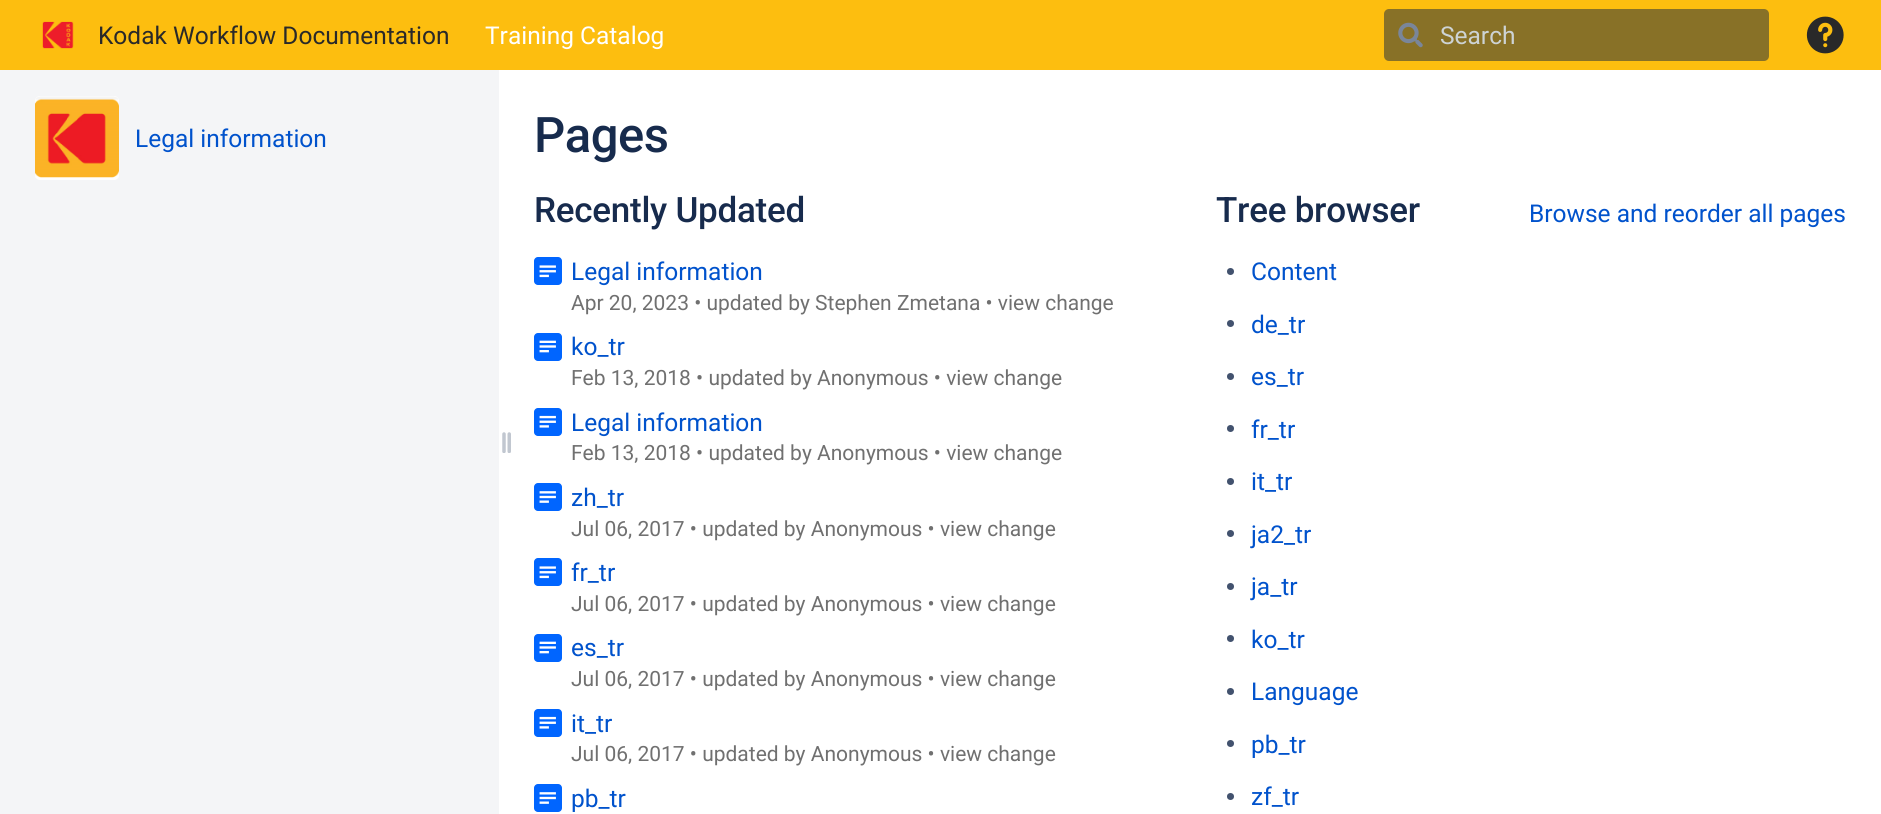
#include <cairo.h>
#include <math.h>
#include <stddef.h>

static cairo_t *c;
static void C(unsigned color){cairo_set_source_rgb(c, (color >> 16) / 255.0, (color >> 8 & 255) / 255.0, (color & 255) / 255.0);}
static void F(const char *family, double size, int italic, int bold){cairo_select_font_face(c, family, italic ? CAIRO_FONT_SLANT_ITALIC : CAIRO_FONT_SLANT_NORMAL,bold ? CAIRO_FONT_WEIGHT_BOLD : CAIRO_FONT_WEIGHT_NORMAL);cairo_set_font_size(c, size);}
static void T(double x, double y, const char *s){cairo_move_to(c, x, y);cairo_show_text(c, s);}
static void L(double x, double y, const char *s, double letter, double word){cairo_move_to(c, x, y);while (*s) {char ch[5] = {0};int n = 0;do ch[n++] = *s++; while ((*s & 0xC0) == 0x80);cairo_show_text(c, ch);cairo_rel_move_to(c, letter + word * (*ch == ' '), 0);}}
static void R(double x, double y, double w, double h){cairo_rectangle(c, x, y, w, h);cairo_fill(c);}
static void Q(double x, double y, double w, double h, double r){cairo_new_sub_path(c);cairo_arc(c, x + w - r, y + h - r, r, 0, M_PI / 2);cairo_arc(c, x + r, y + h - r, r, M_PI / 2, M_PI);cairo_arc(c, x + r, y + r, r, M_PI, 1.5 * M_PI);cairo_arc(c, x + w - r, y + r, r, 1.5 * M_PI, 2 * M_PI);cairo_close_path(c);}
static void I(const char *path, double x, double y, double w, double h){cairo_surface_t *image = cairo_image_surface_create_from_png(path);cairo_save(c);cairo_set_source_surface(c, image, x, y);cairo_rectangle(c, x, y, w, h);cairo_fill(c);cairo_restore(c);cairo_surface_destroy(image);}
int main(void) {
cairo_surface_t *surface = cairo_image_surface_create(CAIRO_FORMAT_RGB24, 1881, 814);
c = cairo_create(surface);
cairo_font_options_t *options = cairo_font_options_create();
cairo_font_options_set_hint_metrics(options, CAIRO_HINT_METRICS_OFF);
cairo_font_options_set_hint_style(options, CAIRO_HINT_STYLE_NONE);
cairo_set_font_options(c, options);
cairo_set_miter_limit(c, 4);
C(0xf4f5f7);
cairo_paint(c);
C(0xfdbe0f);
R(0,0,1881,70);
I("1.png",42,21,32,28);
F("Roboto",24.5,0,0);
C(0x292929);
T(98,44,"Kodak Workflow Documentation");
C(0xffffff);
T(485,44,"Training Catalog");
C(0x887127);
Q(1384,9,385,52,5);
cairo_fill(c);
I("2.png",1398,22,25,26);
C(0xcdd3d4);
T(1440,44,"Search");
I("3.png",1806,16,38,38);
C(0xffffff);
Q(35,96,84,84,5);
cairo_fill(c);
I("4.png",35,96,84,82);
C(0x0052cc);
T(135,147,"Legal information");
C(0xffffff);
R(499,70,1382,744);
I("5.png",502,432,9,21);
F("Roboto Medium",49,0,0);
C(0x172b4d);
L(534,152,"Pages",-.5,0);
F("Roboto Medium",35,0,0);
L(534,222,"Recently Updated",-.25,0);
I("6.png",534,257,28,28);
F("Roboto",24.5,0,0);
C(0x0052cc);
T(571,280,"Legal information");
F("Roboto",21,0,0);
C(0x707070);
T(571,310,"Apr 20, 2023 • updated by Stephen Zmetana • view change");
I("7.png",534,333,28,28);
F("Roboto",24.5,0,0);
C(0x0052cc);
T(571,355,"ko_tr");
F("Roboto",21,0,0);
C(0x707070);
T(571,385,"Feb 13, 2018 • updated by Anonymous • view change");
I("8.png",534,408,28,28);
F("Roboto",24.5,0,0);
C(0x0052cc);
T(571,431,"Legal information");
F("Roboto",21,0,0);
C(0x707070);
T(571,460,"Feb 13, 2018 • updated by Anonymous • view change");
I("9.png",534,483,28,28);
F("Roboto",24.5,0,0);
C(0x0052cc);
T(571,506,"zh_tr");
F("Roboto",21,0,0);
C(0x707070);
T(571,536,"Jul 06, 2017 • updated by Anonymous • view change");
I("6.png",534,558,28,28);
F("Roboto",24.5,0,0);
C(0x0052cc);
T(571,581,"fr_tr");
F("Roboto",21,0,0);
C(0x707070);
T(571,611,"Jul 06, 2017 • updated by Anonymous • view change");
I("7.png",534,634,28,28);
F("Roboto",24.5,0,0);
C(0x0052cc);
T(571,656,"es_tr");
F("Roboto",21,0,0);
C(0x707070);
T(571,686,"Jul 06, 2017 • updated by Anonymous • view change");
I("8.png",534,709,28,28);
F("Roboto",24.5,0,0);
C(0x0052cc);
T(571,732,"it_tr");
F("Roboto",21,0,0);
C(0x707070);
T(571,761,"Jul 06, 2017 • updated by Anonymous • view change");
I("9.png",534,784,28,28);
F("Roboto",24.5,0,0);
C(0x0052cc);
T(571,807,"pb_tr");
F("Roboto Medium",35,0,0);
C(0x172b4d);
L(1216,222,"Tree browser",-.25,0);
F("Roboto",24.5,0,0);
C(0x0052cc);
T(1529,222,"Browse and reorder all pages");
C(0x42526e);
cairo_new_path(c);
cairo_arc(c,1230.5,271.5,3.5,0,2 * M_PI);
cairo_fill(c);
C(0x0052cc);
T(1251,280,"Content");
C(0x42526e);
cairo_new_path(c);
cairo_arc(c,1230.5,323.5,3.5,0,2 * M_PI);
cairo_fill(c);
C(0x0052cc);
T(1251,333,"de_tr");
C(0x42526e);
cairo_new_path(c);
cairo_arc(c,1230.5,376.5,3.5,0,2 * M_PI);
cairo_fill(c);
C(0x0052cc);
T(1251,385,"es_tr");
C(0x42526e);
cairo_new_path(c);
cairo_arc(c,1230.5,428.5,3.5,0,2 * M_PI);
cairo_fill(c);
C(0x0052cc);
T(1251,438,"fr_tr");
C(0x42526e);
cairo_new_path(c);
cairo_arc(c,1230.5,481.5,3.5,0,2 * M_PI);
cairo_fill(c);
C(0x0052cc);
T(1251,490,"it_tr");
C(0x42526e);
cairo_new_path(c);
cairo_arc(c,1230.5,533.5,3.5,0,2 * M_PI);
cairo_fill(c);
C(0x0052cc);
T(1251,543,"ja2_tr");
C(0x42526e);
cairo_new_path(c);
cairo_arc(c,1230.5,586.5,3.5,0,2 * M_PI);
cairo_fill(c);
C(0x0052cc);
T(1251,595,"ja_tr");
C(0x42526e);
cairo_new_path(c);
cairo_arc(c,1230.5,638.5,3.5,0,2 * M_PI);
cairo_fill(c);
C(0x0052cc);
T(1251,648,"ko_tr");
C(0x42526e);
cairo_new_path(c);
cairo_arc(c,1230.5,691.5,3.5,0,2 * M_PI);
cairo_fill(c);
C(0x0052cc);
T(1251,700,"Language");
C(0x42526e);
cairo_new_path(c);
cairo_arc(c,1230.5,743.5,3.5,0,2 * M_PI);
cairo_fill(c);
C(0x0052cc);
T(1251,753,"pb_tr");
C(0x42526e);
cairo_new_path(c);
cairo_arc(c,1230.5,796.5,3.5,0,2 * M_PI);
cairo_fill(c);
C(0x0052cc);
T(1251,805,"zf_tr");
cairo_surface_write_to_png(surface, "o.png");
cairo_font_options_destroy(options);
cairo_destroy(c);
cairo_surface_destroy(surface);
return 0;
}
